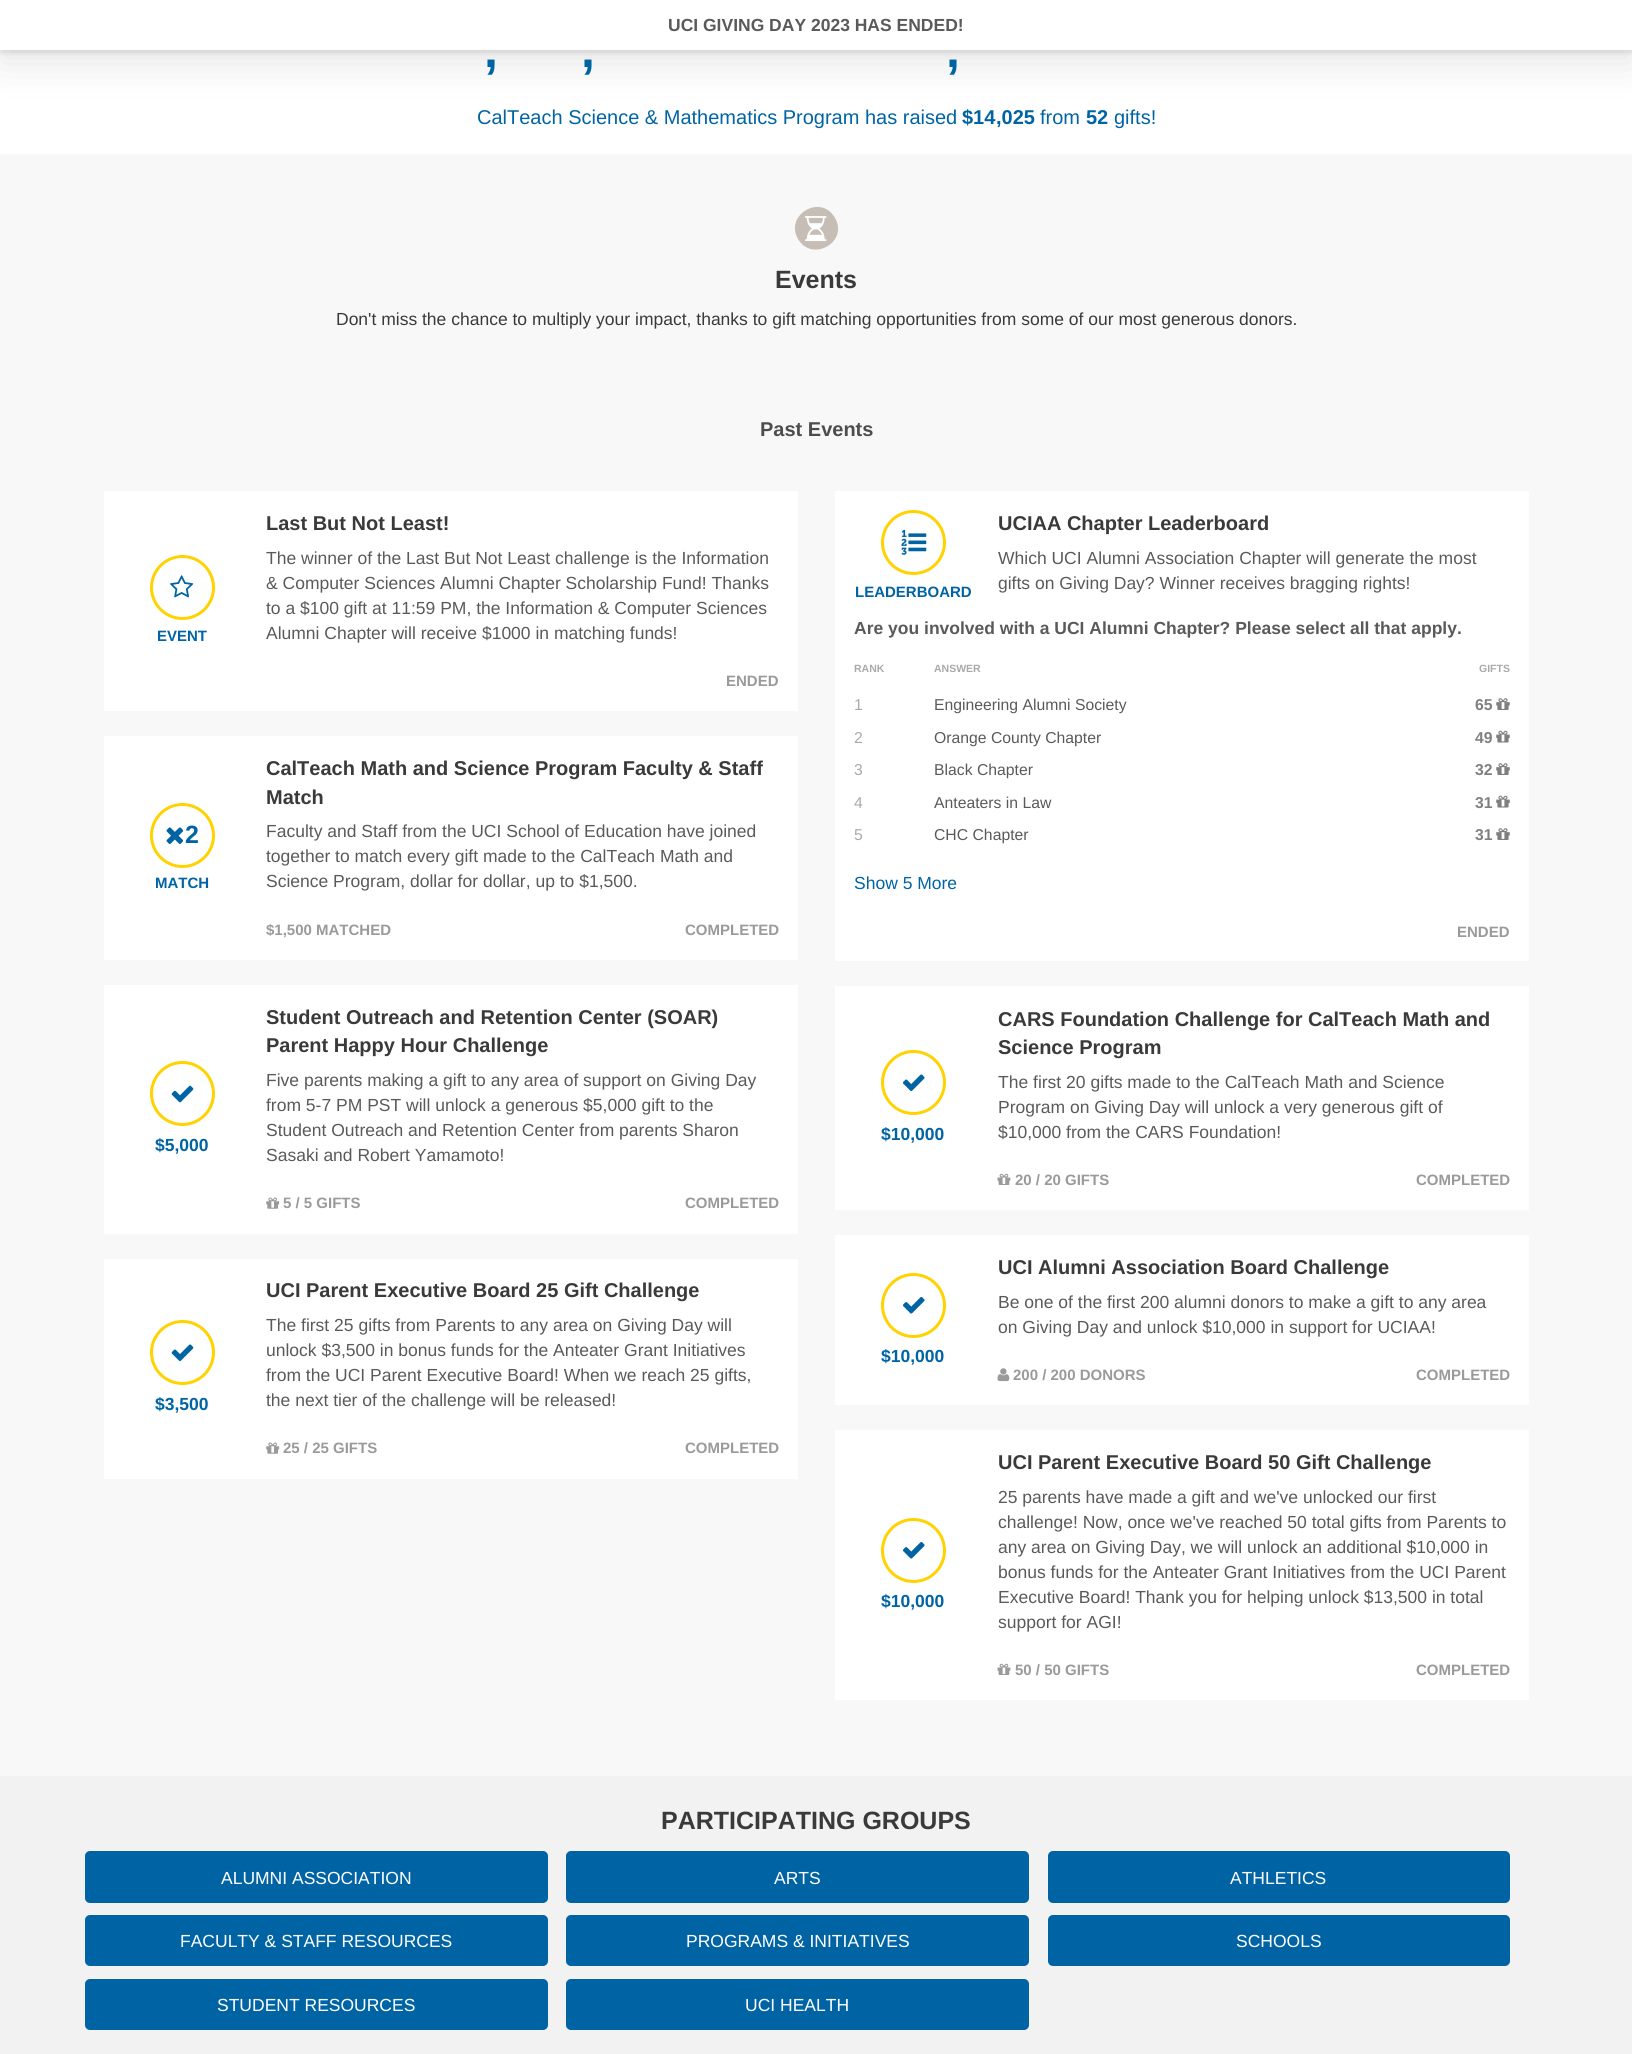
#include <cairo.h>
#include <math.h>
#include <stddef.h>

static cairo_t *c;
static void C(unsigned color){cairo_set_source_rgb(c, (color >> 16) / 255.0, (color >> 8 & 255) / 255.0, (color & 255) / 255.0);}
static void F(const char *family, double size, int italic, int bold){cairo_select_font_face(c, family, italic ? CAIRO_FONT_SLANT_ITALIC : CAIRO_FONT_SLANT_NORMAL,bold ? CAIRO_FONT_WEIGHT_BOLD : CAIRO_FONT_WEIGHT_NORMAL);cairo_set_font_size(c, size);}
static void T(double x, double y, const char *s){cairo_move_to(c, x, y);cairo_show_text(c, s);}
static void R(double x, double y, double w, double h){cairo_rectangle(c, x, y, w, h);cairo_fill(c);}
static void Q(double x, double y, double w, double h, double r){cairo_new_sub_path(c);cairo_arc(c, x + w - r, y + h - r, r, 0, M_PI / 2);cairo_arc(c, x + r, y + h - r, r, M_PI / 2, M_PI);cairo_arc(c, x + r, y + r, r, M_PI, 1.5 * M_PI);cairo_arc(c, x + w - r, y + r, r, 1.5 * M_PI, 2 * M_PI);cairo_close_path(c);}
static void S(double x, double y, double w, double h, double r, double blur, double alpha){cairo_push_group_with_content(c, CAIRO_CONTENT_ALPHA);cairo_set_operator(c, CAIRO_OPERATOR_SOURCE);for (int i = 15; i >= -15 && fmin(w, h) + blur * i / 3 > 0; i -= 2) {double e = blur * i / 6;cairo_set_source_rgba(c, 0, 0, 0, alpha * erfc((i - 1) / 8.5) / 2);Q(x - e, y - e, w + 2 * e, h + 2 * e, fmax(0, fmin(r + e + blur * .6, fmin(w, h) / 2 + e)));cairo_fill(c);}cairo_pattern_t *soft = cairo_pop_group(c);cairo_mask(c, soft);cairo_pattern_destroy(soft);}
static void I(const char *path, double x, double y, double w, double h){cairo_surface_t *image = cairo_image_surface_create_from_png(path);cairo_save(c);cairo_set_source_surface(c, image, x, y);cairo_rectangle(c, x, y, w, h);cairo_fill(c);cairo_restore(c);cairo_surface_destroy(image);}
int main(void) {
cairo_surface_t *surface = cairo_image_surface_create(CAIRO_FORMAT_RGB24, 1632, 2054);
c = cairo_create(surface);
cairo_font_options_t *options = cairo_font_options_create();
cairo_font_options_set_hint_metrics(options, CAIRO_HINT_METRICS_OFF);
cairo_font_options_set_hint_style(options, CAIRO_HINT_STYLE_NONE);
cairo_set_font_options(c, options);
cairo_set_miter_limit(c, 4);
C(0xf2f2f2);
cairo_paint(c);
C(0xffffff);
R(0,50,1632,104);
C(0x000000);
S(0,3,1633,50,0,2.5,.1);
S(0,13,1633,50,0,19,.1);
C(0xffffff);
R(0,0,1632,50);
F("Liberation Sans",17.5,0,1);
C(0x5a5a5a);
T(668,31,"UCI GIVING DAY 2023 HAS ENDED!");
F("Liberation Sans",50,0,1);
C(0x0064a4);
T(484,67,",");
T(581,67,",");
T(946,67,",");
F("Liberation Sans",20,0,0);
T(477,124,"CalTeach Science & Mathematics Program has raised");
F("Liberation Sans",20,0,1);
T(962,124,"$14");
T(996,124,",025");
F("Liberation Sans",20,0,0);
T(1040,124,"from");
F("Liberation Sans",20,0,1);
T(1086,124,"5");
cairo_save(c);
cairo_rectangle(c,1098,104,10,30);
cairo_clip(c);
T(1097,124,"2");
cairo_restore(c);
F("Liberation Sans",20,0,0);
T(1114,124,"gifts!");
C(0xf8f8f8);
R(0,154,1632,1622);
C(0xc6beb5);
cairo_new_path(c);
cairo_move_to(c,835,218);
cairo_curve_to(c,849,242,812,263,798,239);
cairo_curve_to(c,784,215,821,193,835,218);
cairo_close_path(c);
cairo_fill(c);
I("1.png",805,216,22,26);
F("Liberation Sans",25,0,1);
C(0x3a3a3a);
T(775,288,"Events");
F("Liberation Sans",17.5,0,0);
T(336,325,"Don't miss the chance to multiply your impact, thanks to gift matching opportunities from some of our most generous donors.");
F("Liberation Sans",20,0,1);
C(0x4d4d4d);
T(760,436,"Past Events");
C(0xffffff);
R(104,491,694,220);
cairo_new_path(c);
cairo_arc(c,182.5,587.5,31,0,2 * M_PI);
C(0xffd200);
cairo_set_line_width(c,3);
cairo_stroke(c);
I("2.png",170,575,24,23);
F("Liberation Sans",15,0,1);
C(0x0064a4);
T(157,641,"EVENT");
F("Liberation Sans",20,0,1);
C(0x3a3a3a);
T(266,530,"Last But Not Least!");
F("Liberation Sans",17.5,0,0);
C(0x5a5a5a);
T(266,564,"The winner of the Last But Not Least challenge is the Information");
T(266,589,"& Computer Sciences Alumni Chapter Scholarship Fund! Thanks");
T(266,614,"to a $100 gift at 11:59 PM, the Information & Computer Sciences");
T(266,639,"Alumni Chapter will receive $1000 in matching funds!");
F("Liberation Sans",15,0,1);
C(0x9a9a9a);
T(726,686,"ENDED");
C(0xffffff);
R(104,736,694,224);
cairo_new_path(c);
cairo_arc(c,182.5,835.5,31,0,2 * M_PI);
C(0xffd200);
cairo_stroke(c);
I("3.png",166,827,18,17);
F("Liberation Sans",25,0,1);
C(0x0064a4);
T(185,843,"2");
F("Liberation Sans",15,0,1);
T(155,888,"MATCH");
F("Liberation Sans",20,0,1);
C(0x3a3a3a);
T(266,775,"CalTeach Math and Science Program Faculty & Staff");
T(266,804,"Match");
F("Liberation Sans",17.5,0,0);
C(0x5a5a5a);
T(266,837,"Faculty and Staff from the UCI School of Education have joined");
T(266,862,"together to match every gift made to the CalTeach Math and");
T(266,887,"Science Program, dollar for dollar, up to $1,500.");
F("Liberation Sans",15,0,1);
C(0x9a9a9a);
T(266,935,"$1,500 MATCHED");
T(685,935,"COMPLETED");
C(0xffffff);
R(104,985,694,249);
cairo_new_path(c);
cairo_arc(c,182.5,1093.5,31,0,2 * M_PI);
C(0xffd200);
cairo_stroke(c);
I("4.png",171,1085,23,18);
F("Liberation Sans",17.5,0,1);
C(0x0064a4);
T(155,1151,"$5,000");
F("Liberation Sans",20,0,1);
C(0x3a3a3a);
T(266,1024,"Student Outreach and Retention Center (SOAR)");
T(266,1052,"Parent Happy Hour Challenge");
F("Liberation Sans",17.5,0,0);
C(0x5a5a5a);
T(266,1086,"Five parents making a gift to any area of support on Giving Day");
T(266,1111,"from 5-7 PM PST will unlock a generous $5,000 gift to the");
T(266,1136,"Student Outreach and Retention Center from parents Sharon");
T(266,1161,"Sasaki and Robert Yamamoto!");
I("5.png",266,1197,14,12);
F("Liberation Sans",15,0,1);
C(0x9a9a9a);
T(283,1208,"5 / 5 GIFTS");
T(685,1208,"COMPLETED");
C(0xffffff);
R(104,1259,694,220);
cairo_new_path(c);
cairo_arc(c,182.5,1352.5,31,0,2 * M_PI);
C(0xffd200);
cairo_stroke(c);
I("6.png",171,1344,23,17);
F("Liberation Sans",17.5,0,1);
C(0x0064a4);
T(155,1410,"$3,500");
F("Liberation Sans",20,0,1);
C(0x3a3a3a);
T(266,1297,"UCI Parent Executive Board 25 Gift Challenge");
F("Liberation Sans",17.5,0,0);
C(0x5a5a5a);
T(266,1331,"The first 25 gifts from Parents to any area on Giving Day will");
T(266,1356,"unlock $3,500 in bonus funds for the Anteater Grant Initiatives");
T(266,1381,"from the UCI Parent Executive Board! When we reach 25 gifts,");
T(266,1406,"the next tier of the challenge will be released!");
I("5.png",266,1442,14,12);
F("Liberation Sans",15,0,1);
C(0x9a9a9a);
T(283,1453,"25 / 25 GIFTS");
T(685,1453,"COMPLETED");
C(0xffffff);
R(835,491,694,470);
cairo_new_path(c);
cairo_arc(c,913.5,542.5,31,0,2 * M_PI);
C(0xffd200);
cairo_stroke(c);
I("7.png",901,529,26,26);
C(0x0064a4);
T(855,597,"LEADERBOARD");
F("Liberation Sans",20,0,1);
C(0x3a3a3a);
T(998,530,"UCIAA Chapter Leaderboard");
F("Liberation Sans",17.5,0,0);
C(0x5a5a5a);
T(998,564,"Which UCI Alumni Association Chapter will generate the most");
T(998,589,"gifts on Giving Day? Winner receives bragging rights!");
F("Liberation Sans",17.5,0,1);
T(854,634,"Are you involved with a UCI Alumni Chapter? Please select all that apply.");
F("Liberation Sans",10.5,0,1);
C(0xaaaaaa);
T(854,672,"RANK");
T(934,672,"ANSWER");
T(1479,672,"GIFTS");
F("Liberation Sans",15.75,0,0);
T(854,710,"1");
C(0x5a5a5a);
T(934,710,"Engineering Alumni Society");
F("Liberation Sans",15.75,0,1);
C(0x808080);
T(1475,710,"65");
I("8.png",1496,698,14,12);
F("Liberation Sans",15.75,0,0);
C(0xaaaaaa);
T(854,743,"2");
C(0x5a5a5a);
T(934,743,"Orange County Chapter");
F("Liberation Sans",15.75,0,1);
C(0x808080);
T(1475,743,"49");
I("9.png",1496,730,14,13);
F("Liberation Sans",15.75,0,0);
C(0xaaaaaa);
T(854,775,"3");
C(0x5a5a5a);
T(934,775,"Black Chapter");
F("Liberation Sans",15.75,0,1);
C(0x808080);
T(1475,775,"32");
I("8.png",1496,763,14,12);
F("Liberation Sans",15.75,0,0);
C(0xaaaaaa);
T(854,808,"4");
C(0x5a5a5a);
T(934,808,"Anteaters in Law");
F("Liberation Sans",15.75,0,1);
C(0x808080);
T(1475,808,"31");
I("9.png",1496,795,14,13);
F("Liberation Sans",15.75,0,0);
C(0xaaaaaa);
T(854,840,"5");
C(0x5a5a5a);
T(934,840,"CHC Chapter");
F("Liberation Sans",15.75,0,1);
C(0x808080);
T(1475,840,"31");
I("8.png",1496,828,14,12);
F("Liberation Sans",17.5,0,0);
C(0x0064a4);
T(854,889,"Show 5 More");
F("Liberation Sans",15,0,1);
C(0x9a9a9a);
T(1457,937,"ENDED");
C(0xffffff);
R(835,986,694,224);
cairo_new_path(c);
cairo_arc(c,913.5,1082.5,31,0,2 * M_PI);
C(0xffd200);
cairo_stroke(c);
I("10.png",903,1074,22,17);
F("Liberation Sans",17.5,0,1);
C(0x0064a4);
T(881,1140,"$10,000");
F("Liberation Sans",20,0,1);
C(0x3a3a3a);
T(998,1026,"CARS Foundation Challenge for CalTeach Math and");
T(998,1054,"Science Program");
F("Liberation Sans",17.5,0,0);
C(0x5a5a5a);
T(998,1088,"The first 20 gifts made to the CalTeach Math and Science");
T(998,1113,"Program on Giving Day will unlock a very generous gift of");
T(998,1138,"$10,000 from the CARS Foundation!");
I("11.png",997,1173,14,12);
F("Liberation Sans",15,0,1);
C(0x9a9a9a);
T(1015,1185,"20 / 20 GIFTS");
T(1416,1185,"COMPLETED");
C(0xffffff);
R(835,1235,694,170);
cairo_new_path(c);
cairo_arc(c,913.5,1305.5,31,0,2 * M_PI);
C(0xffd200);
cairo_stroke(c);
I("12.png",903,1297,22,17);
F("Liberation Sans",17.5,0,1);
C(0x0064a4);
T(881,1362,"$10,000");
F("Liberation Sans",20,0,1);
C(0x3a3a3a);
T(998,1274,"UCI Alumni Association Board Challenge");
F("Liberation Sans",17.5,0,0);
C(0x5a5a5a);
T(998,1308,"Be one of the first 200 alumni donors to make a gift to any area");
T(998,1333,"on Giving Day and unlock $10,000 in support for UCIAA!");
I("13.png",997,1368,13,14);
F("Liberation Sans",15,0,1);
C(0x9a9a9a);
T(1013,1380,"200 / 200 DONORS");
T(1416,1380,"COMPLETED");
C(0xffffff);
R(835,1430,694,270);
cairo_new_path(c);
cairo_arc(c,913.5,1550.5,31,0,2 * M_PI);
C(0xffd200);
cairo_stroke(c);
I("12.png",903,1542,22,17);
F("Liberation Sans",17.5,0,1);
C(0x0064a4);
T(881,1607,"$10,000");
F("Liberation Sans",20,0,1);
C(0x3a3a3a);
T(998,1469,"UCI Parent Executive Board 50 Gift Challenge");
F("Liberation Sans",17.5,0,0);
C(0x5a5a5a);
T(998,1503,"25 parents have made a gift and we've unlocked our first");
T(998,1528,"challenge! Now, once we've reached 50 total gifts from Parents to");
T(998,1553,"any area on Giving Day, we will unlock an additional $10,000 in");
T(998,1578,"bonus funds for the Anteater Grant Initiatives from the UCI Parent");
T(998,1603,"Executive Board! Thank you for helping unlock $13,500 in total");
T(998,1628,"support for AGI!");
I("11.png",997,1663,14,12);
F("Liberation Sans",15,0,1);
C(0x9a9a9a);
T(1015,1675,"50 / 50 GIFTS");
T(1416,1675,"COMPLETED");
F("Liberation Sans",25,0,1);
C(0x3a3a3a);
T(661,1829,"PARTICIPATING GROUPS");
C(0x0064a4);
Q(85,1851,463,52,5);
cairo_fill(c);
F("Liberation Sans",17.5,0,0);
C(0xffffff);
T(221,1884,"ALUMNI ASSOCIATION");
C(0x0064a4);
Q(566,1851,463,52,5);
cairo_fill(c);
C(0xffffff);
T(774,1884,"ARTS");
C(0x0064a4);
Q(1048,1851,462,52,5);
cairo_fill(c);
C(0xffffff);
T(1230,1884,"ATHLETICS");
C(0x0064a4);
Q(85,1915,463,51,5);
cairo_fill(c);
C(0xffffff);
T(180,1947,"FACULTY & STAFF RESOURCES");
C(0x0064a4);
Q(566,1915,463,51,5);
cairo_fill(c);
C(0xffffff);
T(686,1947,"PROGRAMS & INITIATIVES");
C(0x0064a4);
Q(1048,1915,462,51,5);
cairo_fill(c);
C(0xffffff);
T(1236,1947,"SCHOOLS");
C(0x0064a4);
Q(85,1979,463,51,5);
cairo_fill(c);
C(0xffffff);
T(217,2011,"STUDENT RESOURCES");
C(0x0064a4);
Q(566,1979,463,51,5);
cairo_fill(c);
C(0xffffff);
T(745,2011,"UCI HEALTH");
cairo_surface_write_to_png(surface, "o.png");
cairo_font_options_destroy(options);
cairo_destroy(c);
cairo_surface_destroy(surface);
return 0;
}
